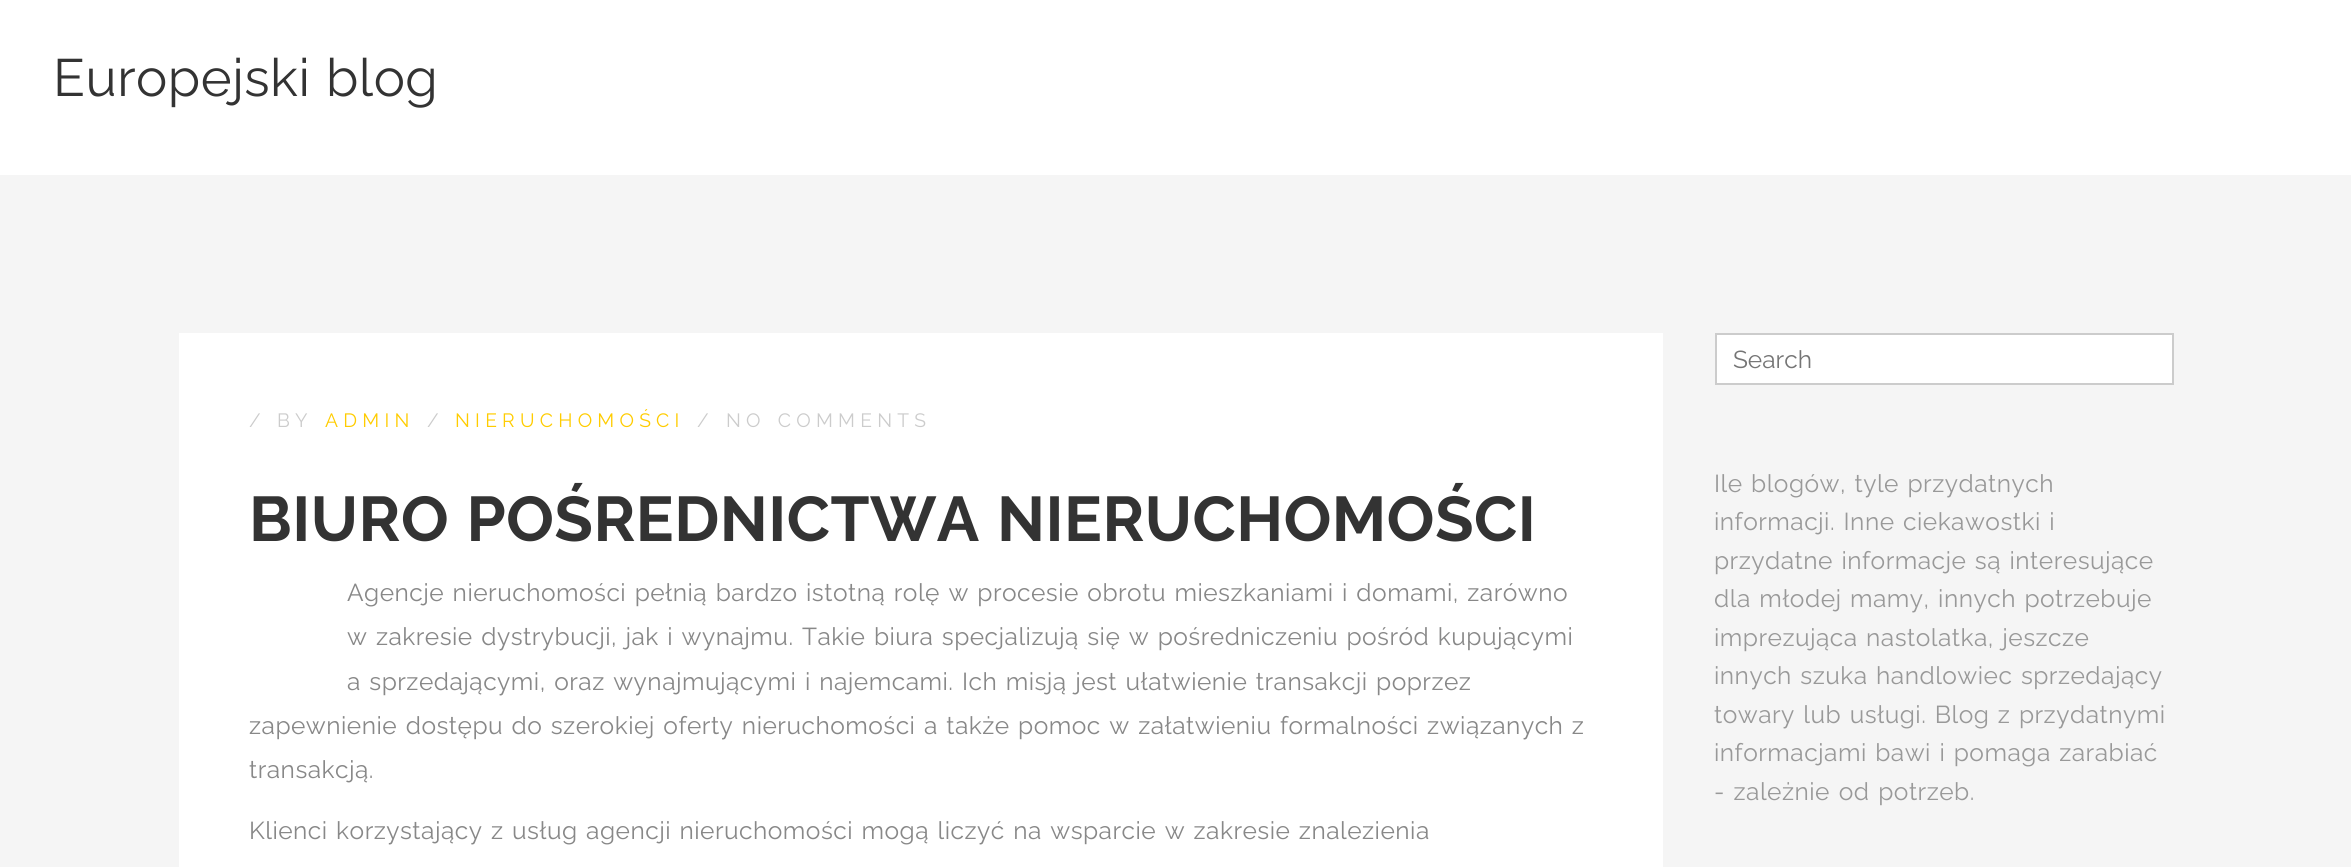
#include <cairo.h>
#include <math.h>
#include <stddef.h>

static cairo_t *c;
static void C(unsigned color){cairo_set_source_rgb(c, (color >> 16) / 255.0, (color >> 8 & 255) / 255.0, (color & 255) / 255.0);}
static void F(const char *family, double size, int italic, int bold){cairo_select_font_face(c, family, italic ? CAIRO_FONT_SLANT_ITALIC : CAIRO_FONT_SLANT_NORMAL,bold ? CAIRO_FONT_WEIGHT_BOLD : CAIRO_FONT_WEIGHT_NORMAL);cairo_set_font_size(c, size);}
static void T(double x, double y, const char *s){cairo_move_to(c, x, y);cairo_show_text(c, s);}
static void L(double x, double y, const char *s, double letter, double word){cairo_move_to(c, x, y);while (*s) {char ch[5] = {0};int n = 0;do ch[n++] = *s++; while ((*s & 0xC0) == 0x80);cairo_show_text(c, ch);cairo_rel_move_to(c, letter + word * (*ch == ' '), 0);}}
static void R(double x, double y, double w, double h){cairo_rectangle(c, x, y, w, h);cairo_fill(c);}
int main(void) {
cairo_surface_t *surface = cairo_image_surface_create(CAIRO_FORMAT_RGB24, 2351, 867);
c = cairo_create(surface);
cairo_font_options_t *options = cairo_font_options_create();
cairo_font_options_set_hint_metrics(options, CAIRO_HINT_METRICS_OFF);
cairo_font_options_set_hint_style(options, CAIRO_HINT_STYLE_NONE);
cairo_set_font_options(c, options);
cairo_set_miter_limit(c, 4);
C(0xf5f5f5);
cairo_paint(c);
C(0xffffff);
R(0,0,2351,175);
F("Raleway",52.5,0,0);
C(0x333333);
L(53,96,"Europejski blog",.49,1.75);
C(0xffffff);
R(179,333,1484,534);
F("Raleway",19.25,0,0);
C(0xcccccc);
L(249,427,"/",5.25,0);
L(277,427,"BY",5.25,0);
C(0xffcc00);
L(325,427,"ADMIN",5.25,0);
C(0xcccccc);
L(427,427,"/",5.25,0);
C(0xffcc00);
L(455,427,"NIERUCHOMOŚCI",5.25,0);
C(0xcccccc);
L(697,427,"/",5.25,0);
L(726,427,"NO COMMENTS",5.25,1.75);
F("Raleway",63,0,1);
C(0x333333);
L(249,541,"BIURO POŚREDNICTWA NIERUCHOMOŚCI",.49,1.75);
F("Raleway",24.5,0,0);
C(0x888888);
L(347,601,"Agencje nieruchomości pełnią bardzo istotną rolę w procesie obrotu mieszkaniami i domami, zarówno",.49,1.75);
L(347,645,"w zakresie dystrybucji, jak i wynajmu. Takie biura specjalizują się w pośredniczeniu pośród kupującymi",.49,1.75);
L(347,690,"a sprzedającymi, oraz wynajmującymi i najemcami. Ich misją jest ułatwienie transakcji poprzez",.49,1.75);
L(249,734,"zapewnienie dostępu do szerokiej oferty nieruchomości a także pomoc w załatwieniu formalności związanych z",.49,1.75);
L(249,778,"transakcją.",.49,0);
L(249,839,"Klienci korzystający z usług agencji nieruchomości mogą liczyć na wsparcie w zakresie znalezienia",.49,1.75);
C(0xffffff);
cairo_rectangle(c,1716,334,457,50);
cairo_fill_preserve(c);
C(0xcccccc);
cairo_stroke(c);
C(0x757575);
T(1733,368,"Search");
C(0x999999);
L(1714,492,"Ile blogów, tyle przydatnych",.49,1.75);
L(1714,530,"informacji. Inne ciekawostki i",.49,1.75);
L(1714,569,"przydatne informacje są interesujące",.49,1.75);
L(1714,607,"dla młodej mamy, innych potrzebuje",.49,1.75);
L(1714,646,"imprezująca nastolatka, jeszcze",.49,1.75);
L(1714,684,"innych szuka handlowiec sprzedający",.49,1.75);
L(1714,723,"towary lub usługi. Blog z przydatnymi",.49,1.75);
L(1714,761,"informacjami bawi i pomaga zarabiać",.49,1.75);
L(1714,800,"- zależnie od potrzeb.",.49,2);
cairo_surface_write_to_png(surface, "o.png");
cairo_font_options_destroy(options);
cairo_destroy(c);
cairo_surface_destroy(surface);
return 0;
}
